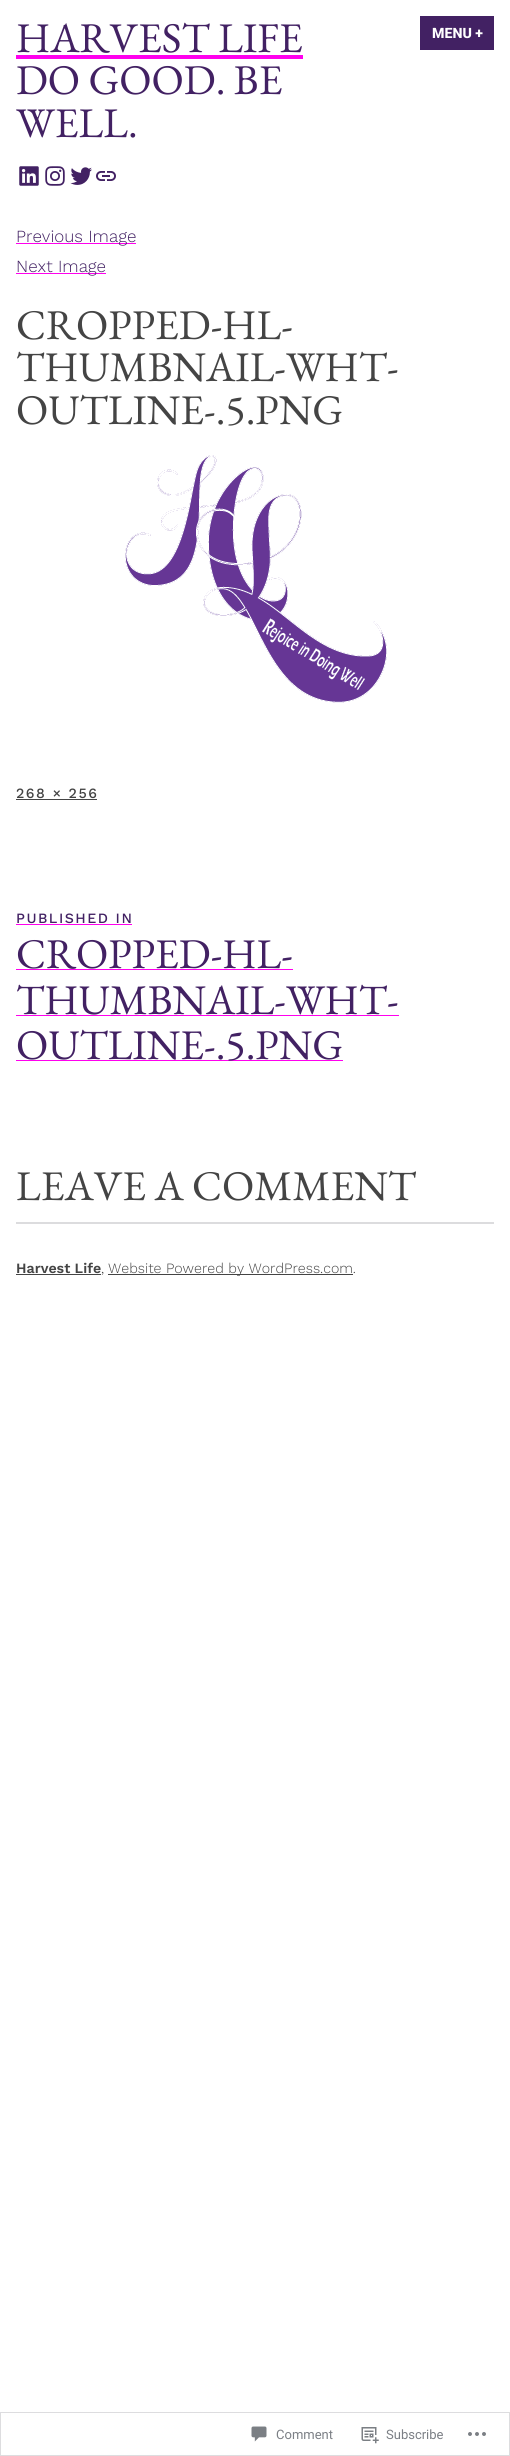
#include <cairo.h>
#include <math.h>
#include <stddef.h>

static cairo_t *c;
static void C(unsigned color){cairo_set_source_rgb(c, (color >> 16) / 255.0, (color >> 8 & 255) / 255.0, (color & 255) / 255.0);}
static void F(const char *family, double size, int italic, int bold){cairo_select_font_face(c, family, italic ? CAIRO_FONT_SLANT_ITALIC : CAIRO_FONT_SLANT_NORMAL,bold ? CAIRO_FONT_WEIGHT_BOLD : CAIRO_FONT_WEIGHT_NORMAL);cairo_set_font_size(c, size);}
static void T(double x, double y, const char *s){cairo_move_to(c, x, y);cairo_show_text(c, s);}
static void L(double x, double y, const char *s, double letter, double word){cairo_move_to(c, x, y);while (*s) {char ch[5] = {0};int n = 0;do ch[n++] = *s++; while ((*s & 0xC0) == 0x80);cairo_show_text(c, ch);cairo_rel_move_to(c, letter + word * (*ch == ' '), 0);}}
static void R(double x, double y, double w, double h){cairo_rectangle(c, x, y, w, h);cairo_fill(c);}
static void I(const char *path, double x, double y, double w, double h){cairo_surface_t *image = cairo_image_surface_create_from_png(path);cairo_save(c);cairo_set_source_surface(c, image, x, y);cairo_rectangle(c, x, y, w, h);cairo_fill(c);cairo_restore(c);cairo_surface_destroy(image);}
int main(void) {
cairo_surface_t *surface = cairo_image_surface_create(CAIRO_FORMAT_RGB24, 510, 2456);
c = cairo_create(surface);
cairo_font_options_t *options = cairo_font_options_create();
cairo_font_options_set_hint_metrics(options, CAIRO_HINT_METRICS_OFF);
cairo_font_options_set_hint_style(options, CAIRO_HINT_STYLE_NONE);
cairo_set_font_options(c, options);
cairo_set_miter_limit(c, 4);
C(0xffffff);
cairo_paint(c);
F("EB Garamond",42.25,0,0);
C(0x422163);
T(16,52,"HARVEST LIFE");
C(0xff00ee);
R(16,55,287,4);
C(0x422163);
T(16,94,"DO GOOD. BE");
T(16,137,"WELL.");
R(420,16,74,34);
F("Roboto ExtraBold",14.2,0,0);
C(0xffffff);
T(432,38,"MENU +");
I("1.png",19,166,20,20);
I("2.png",45,166,20,20);
I("3.png",70,167,22,18);
I("4.png",96,171,20,10);
C(0xff00ee);
R(16,243,120,1);
F("Work Sans Light",17,0,0);
C(0x422163);
T(16,242,"Previous Image");
C(0xff00ee);
R(16,273,90,1);
C(0x422163);
T(16,272,"Next Image");
F("EB Garamond",42.25,0,0);
C(0x444444);
T(16,339,"CROPPED-HL-");
T(16,381,"THUMBNAIL-WHT-");
T(16,424,"OUTLINE-.5.PNG");
I("5.png",125,455,262,248);
F("Work Sans Medium",14.2,0,0);
L(16,798,"268 × 256",1.5,0);
R(16,799,81,1);
C(0x422163);
L(16,923,"PUBLISHED IN",1.5,0);
C(0xff00ee);
R(16,924,116,1);
F("EB Garamond",42.25,0,0);
C(0x422163);
T(16,968,"CROPPED-HL-");
C(0xff00ee);
R(16,969,277,1);
C(0x422163);
T(16,1014,"THUMBNAIL-WHT-");
C(0xff00ee);
R(16,1015,383,1);
R(16,1060,327,1);
C(0x422163);
T(16,1059,"OUTLINE-.5.PNG");
C(0x444444);
T(16,1200,"LEAVE A COMMENT");
C(0xdcdcde);
R(16,1222,478,2);
F("Work Sans SemiBold",14.2,0,0);
C(0x444444);
T(16,1273,"Harvest Life");
R(16,1274,85,1);
F("Work Sans Light",14.2,0,0);
T(101,1273,",");
R(108,1274,245,1);
T(108,1273,"Website Powered by WordPress.com.");
cairo_rectangle(c,.5,2412.5,509,43);
C(0xdddddf);
cairo_set_line_width(c,1);
cairo_stroke(c);
I("6.png",251,2426,16,16);
F("Roboto",13,0,0);
C(0x7b7f85);
T(276,2439,"Comment");
I("7.png",361,2427,18,17);
T(386,2439,"Subscribe");
I("8.png",468,2432,18,4);
cairo_surface_write_to_png(surface, "o.png");
cairo_font_options_destroy(options);
cairo_destroy(c);
cairo_surface_destroy(surface);
return 0;
}
